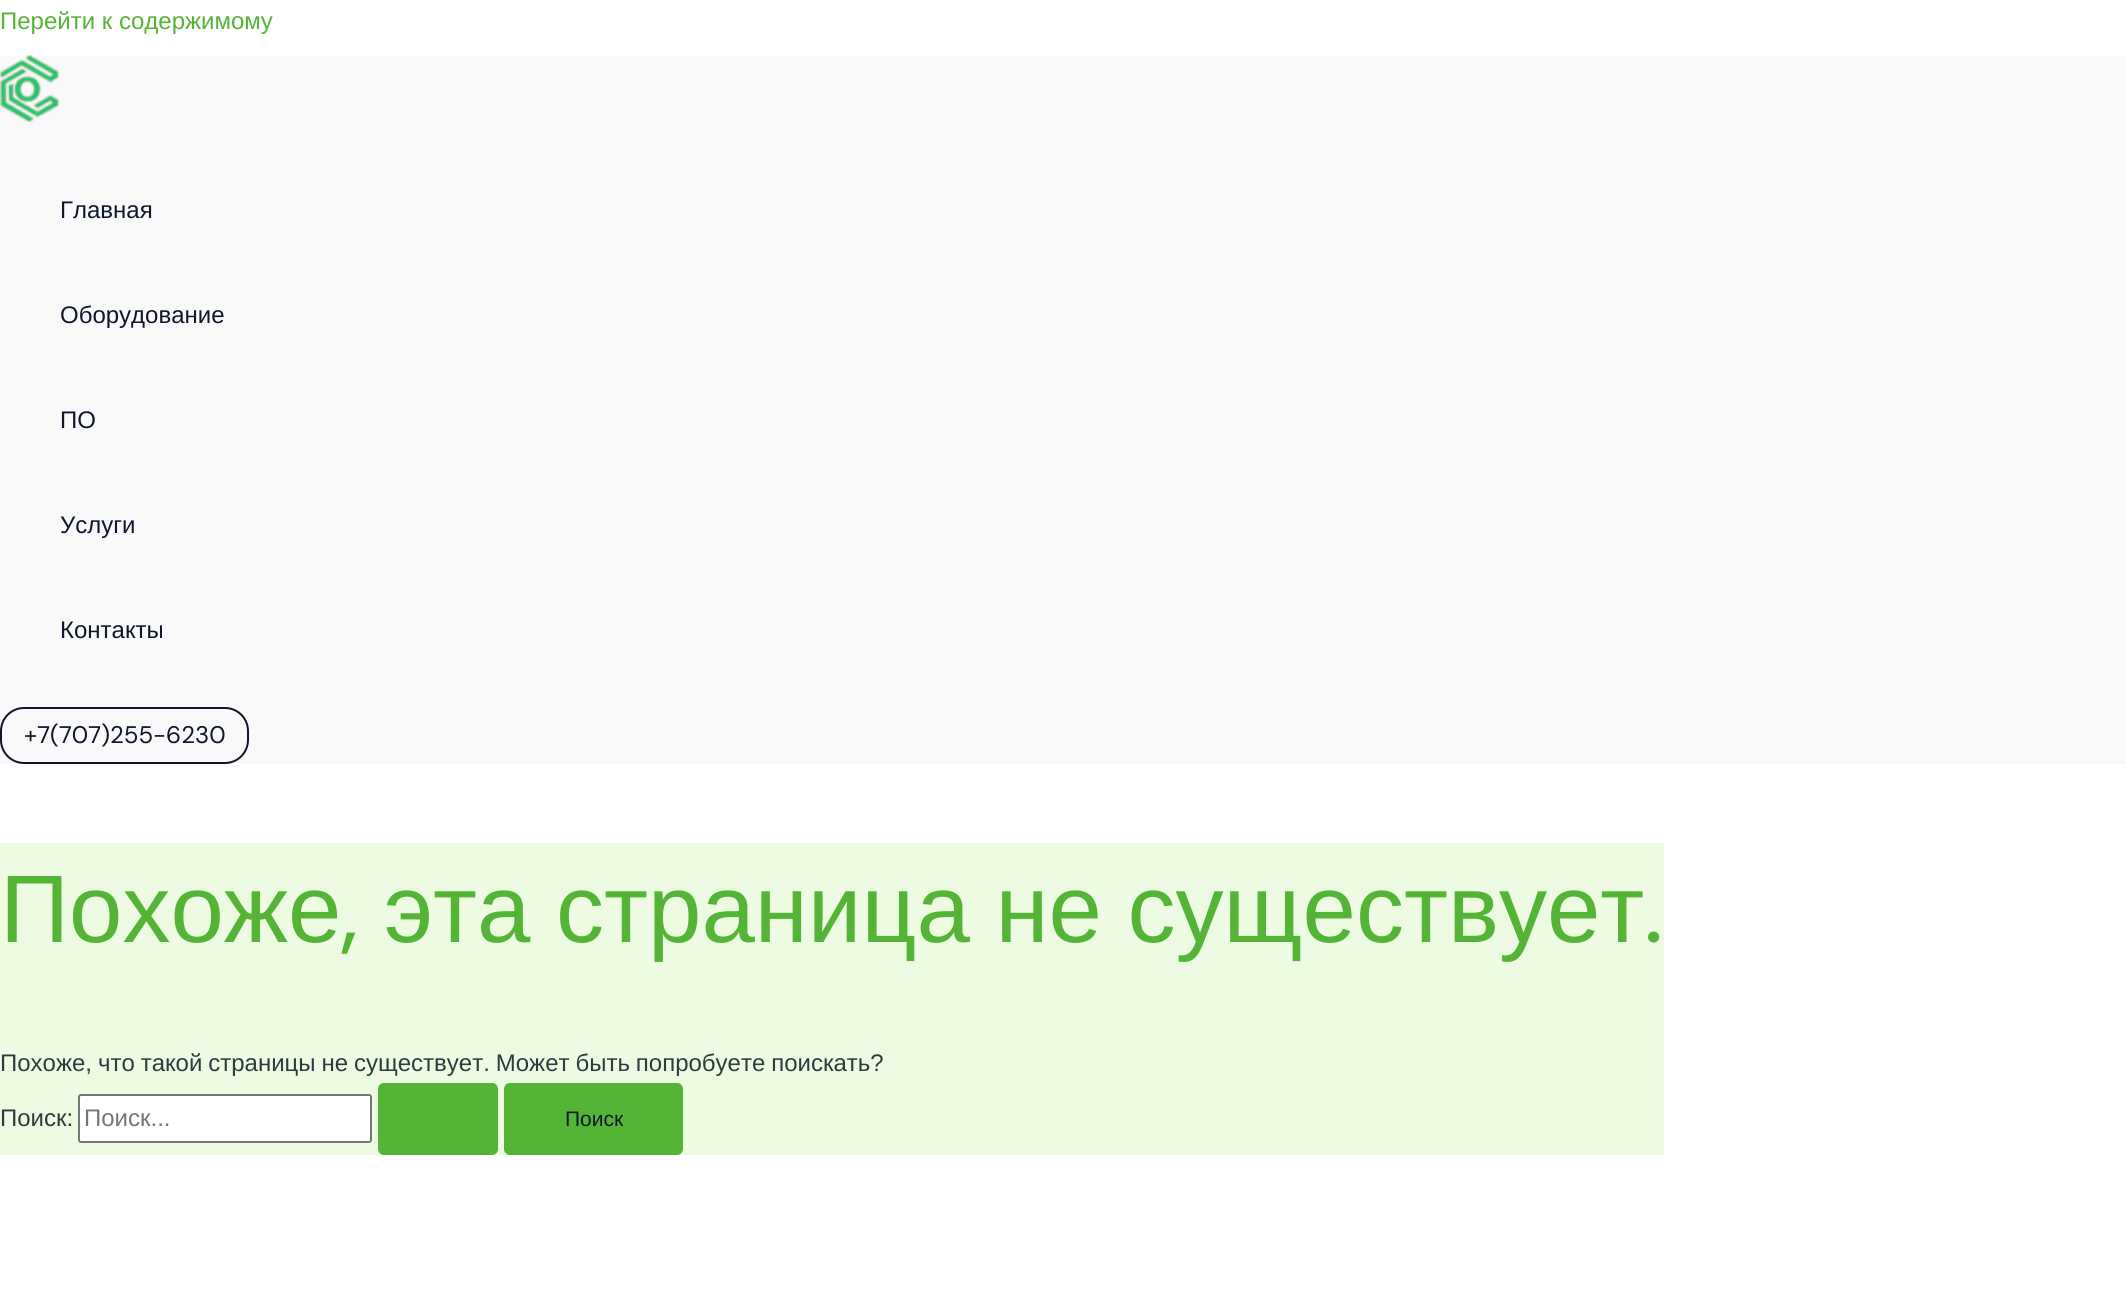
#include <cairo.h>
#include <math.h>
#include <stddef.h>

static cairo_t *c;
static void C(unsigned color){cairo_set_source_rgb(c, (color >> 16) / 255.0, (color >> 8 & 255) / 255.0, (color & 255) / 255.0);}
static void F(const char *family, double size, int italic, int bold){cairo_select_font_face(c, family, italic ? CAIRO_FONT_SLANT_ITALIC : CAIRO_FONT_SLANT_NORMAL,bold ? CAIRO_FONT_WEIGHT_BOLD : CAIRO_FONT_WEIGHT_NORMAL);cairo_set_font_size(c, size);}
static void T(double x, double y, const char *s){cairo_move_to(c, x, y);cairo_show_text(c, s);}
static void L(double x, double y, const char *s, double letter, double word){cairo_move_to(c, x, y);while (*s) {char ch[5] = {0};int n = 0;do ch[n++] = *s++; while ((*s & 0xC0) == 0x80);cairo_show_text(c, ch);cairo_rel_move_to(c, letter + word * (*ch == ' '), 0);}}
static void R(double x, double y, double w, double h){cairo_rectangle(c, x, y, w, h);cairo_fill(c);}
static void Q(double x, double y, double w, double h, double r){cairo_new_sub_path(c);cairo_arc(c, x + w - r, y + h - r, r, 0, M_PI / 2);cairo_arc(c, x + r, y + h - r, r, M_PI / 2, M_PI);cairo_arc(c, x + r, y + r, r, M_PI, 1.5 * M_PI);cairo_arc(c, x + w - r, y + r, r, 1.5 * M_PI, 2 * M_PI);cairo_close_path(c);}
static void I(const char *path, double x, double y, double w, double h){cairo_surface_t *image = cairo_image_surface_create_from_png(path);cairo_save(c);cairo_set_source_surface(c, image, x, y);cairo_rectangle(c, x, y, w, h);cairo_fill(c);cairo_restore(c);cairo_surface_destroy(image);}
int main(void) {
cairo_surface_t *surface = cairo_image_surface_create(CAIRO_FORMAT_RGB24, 2126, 1292);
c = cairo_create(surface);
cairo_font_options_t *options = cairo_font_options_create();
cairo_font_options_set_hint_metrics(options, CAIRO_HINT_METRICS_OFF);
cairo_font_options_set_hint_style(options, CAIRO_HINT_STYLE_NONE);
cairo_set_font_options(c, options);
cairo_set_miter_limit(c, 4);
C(0xffffff);
cairo_paint(c);
F("Liberation Sans",24,0,0);
C(0x54b435);
T(0,29,"Перейти к содержимому");
C(0xf9f9f9);
R(0,56,2126,708);
I("1.png",0,55,60,67);
C(0x0f172a);
T(60,218,"Главная");
T(60,323,"Оборудование");
T(60,428,"ПО");
T(60,533,"Услуги");
T(60,638,"Контакты");
Q(1,708,247,55,23);
cairo_stroke(c);
F("DM Sans",24,0,0);
T(24,743,"+7(707)255-6230");
C(0xedfbe2);
R(0,843,1664,312);
F("Liberation Sans",96,0,0);
C(0x54b435);
T(0,942,"Похоже");
F("DM Sans",96,0,0);
T(341,942,",");
F("Liberation Sans",96,0,0);
L(384,942,"эта страница не существует",0,-1);
F("DM Sans",96,0,0);
T(1644,942,".");
F("Liberation Sans",24,0,0);
C(0x2f3b40);
L(0,1071,"Похоже, что такой страницы не существует. Может быть попробуете поискать?",0,-.75);
T(0,1126,"Поиск:");
C(0xffffff);
Q(79,1095,292,47,2);
cairo_fill_preserve(c);
C(0x767676);
cairo_stroke(c);
C(0x757575);
T(84,1126,"Поиск...");
C(0x54b435);
Q(378,1083,120,72,6);
cairo_fill(c);
Q(504,1083,179,72,6);
cairo_fill(c);
F("Liberation Sans",21,0,0);
C(0x0f172a);
T(565,1126,"Поиск");
cairo_surface_write_to_png(surface, "o.png");
cairo_font_options_destroy(options);
cairo_destroy(c);
cairo_surface_destroy(surface);
return 0;
}
